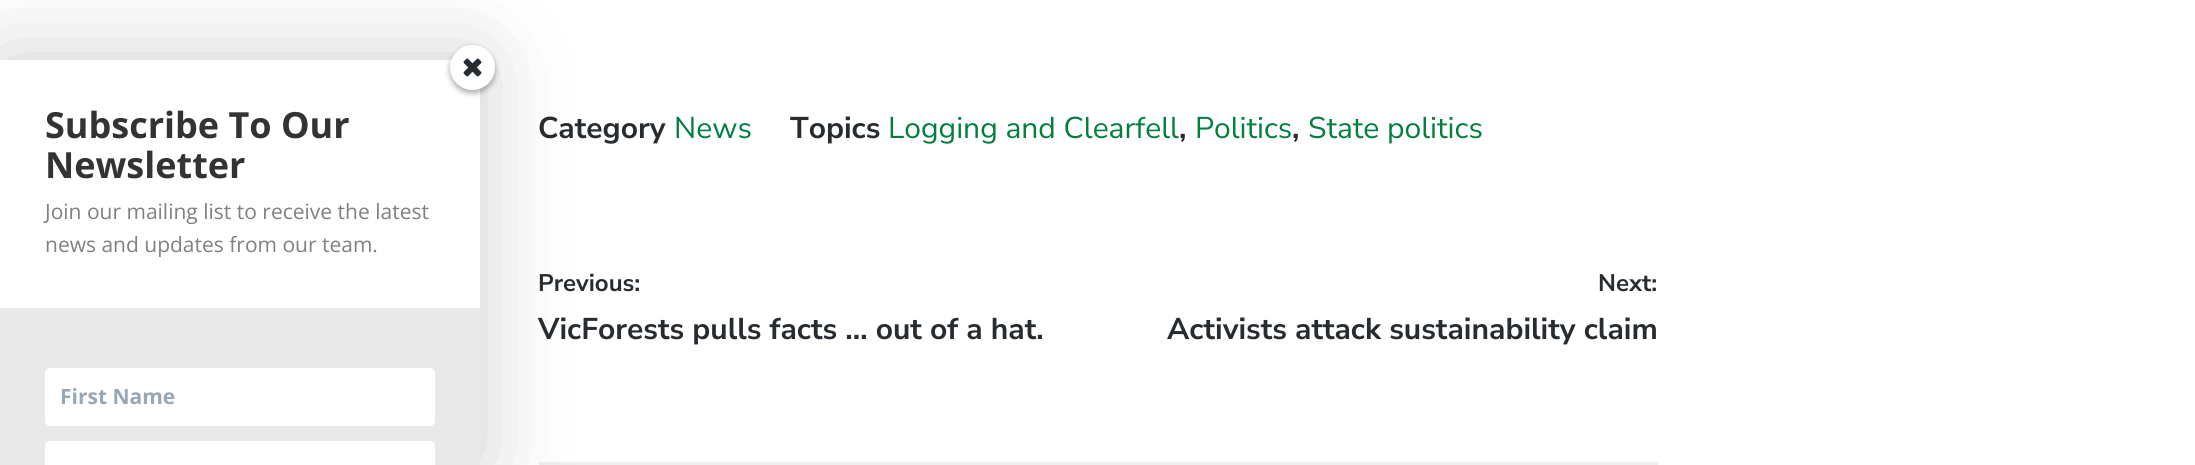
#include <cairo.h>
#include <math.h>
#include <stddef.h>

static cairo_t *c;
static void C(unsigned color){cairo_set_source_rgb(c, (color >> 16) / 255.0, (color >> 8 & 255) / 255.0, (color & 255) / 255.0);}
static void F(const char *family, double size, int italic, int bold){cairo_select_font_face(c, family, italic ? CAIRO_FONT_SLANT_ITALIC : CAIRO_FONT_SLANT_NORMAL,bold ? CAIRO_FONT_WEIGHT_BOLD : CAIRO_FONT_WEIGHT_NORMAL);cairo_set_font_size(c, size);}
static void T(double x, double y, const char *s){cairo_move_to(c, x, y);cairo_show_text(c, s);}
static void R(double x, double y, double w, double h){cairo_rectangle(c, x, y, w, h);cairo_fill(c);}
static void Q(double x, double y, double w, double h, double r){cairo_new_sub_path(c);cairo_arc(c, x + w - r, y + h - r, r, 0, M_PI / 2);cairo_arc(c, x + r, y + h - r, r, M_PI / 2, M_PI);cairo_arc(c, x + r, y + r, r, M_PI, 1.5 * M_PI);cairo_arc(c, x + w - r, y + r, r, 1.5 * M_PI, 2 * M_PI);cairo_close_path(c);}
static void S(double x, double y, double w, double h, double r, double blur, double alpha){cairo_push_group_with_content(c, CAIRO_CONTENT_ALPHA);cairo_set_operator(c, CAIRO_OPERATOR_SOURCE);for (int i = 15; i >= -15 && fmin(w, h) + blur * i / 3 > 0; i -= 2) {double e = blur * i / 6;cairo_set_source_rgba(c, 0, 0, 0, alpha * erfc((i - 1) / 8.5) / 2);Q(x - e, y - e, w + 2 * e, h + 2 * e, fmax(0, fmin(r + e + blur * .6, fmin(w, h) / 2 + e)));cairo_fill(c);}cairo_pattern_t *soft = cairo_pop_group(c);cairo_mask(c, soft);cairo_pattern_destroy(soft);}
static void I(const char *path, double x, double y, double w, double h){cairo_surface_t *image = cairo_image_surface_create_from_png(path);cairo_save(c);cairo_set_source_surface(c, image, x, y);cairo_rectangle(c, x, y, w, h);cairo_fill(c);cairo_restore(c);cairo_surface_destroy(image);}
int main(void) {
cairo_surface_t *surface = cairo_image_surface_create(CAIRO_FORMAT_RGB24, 2195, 465);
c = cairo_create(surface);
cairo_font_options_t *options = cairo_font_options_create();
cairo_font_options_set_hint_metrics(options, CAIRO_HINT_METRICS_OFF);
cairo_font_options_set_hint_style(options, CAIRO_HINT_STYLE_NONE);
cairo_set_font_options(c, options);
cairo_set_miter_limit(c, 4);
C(0xffffff);
cairo_paint(c);
C(0xeeeeee);
R(539,462,1119,3);
C(0x000000);
S(0,60,480,405,0,45,.2);
C(0xffffff);
R(0,60,480,248);
C(0x000000);
S(450,48,45,45,22.5,3,.34);
C(0xffffff);
cairo_arc(c,472.5,67.5,22.5,0,2 * M_PI);
cairo_fill(c);
I("1.png",463,58,19,19);
F("Open Sans",36,0,1);
C(0x333333);
T(45,138,"Subscribe To Our");
T(45,178,"Newsletter");
F("Open Sans",21,0,0);
C(0x808080);
T(45,219,"Join our mailing list to receive the latest");
T(45,252,"news and updates from our team.");
C(0xe9e9e9);
R(0,308,480,157);
C(0xffffff);
Q(45,368,390,58,5);
cairo_fill(c);
F("Open Sans",21,0,1);
C(0x97a7b5);
T(60,404,"First Name");
C(0xffffff);
cairo_new_path(c);
cairo_move_to(c,50,441);
cairo_line_to(c,430,441);
cairo_curve_to(c,433,441,435,443,435,446);
cairo_line_to(c,435,465);
cairo_line_to(c,45,465);
cairo_line_to(c,45,446);
cairo_curve_to(c,45,443,47,441,50,441);
cairo_close_path(c);
cairo_fill(c);
F("Nunito Sans",30,0,1);
C(0x272c30);
T(538,138,"Category");
F("Nunito Sans",30,0,0);
C(0x007f3f);
T(674,138,"News");
F("Nunito Sans",30,0,1);
C(0x272c30);
T(790,138,"Topics");
F("Nunito Sans",30,0,0);
C(0x007f3f);
T(888,138,"Logging and Clearfell");
F("Nunito Sans",30,0,1);
C(0x272c30);
T(1179,138,",");
F("Nunito Sans",30,0,0);
C(0x007f3f);
T(1195,138,"Politics");
F("Nunito Sans",30,0,1);
C(0x272c30);
T(1292,138,",");
F("Nunito Sans",30,0,0);
C(0x007f3f);
T(1308,138,"State politics");
F("Nunito Sans",24,0,1);
C(0x272c30);
T(538,291,"Previous:");
F("Nunito Sans",30,0,1);
T(538,339,"VicForests pulls facts … out of a hat.");
F("Nunito Sans",24,0,1);
T(1598,291,"Next:");
F("Nunito Sans",30,0,1);
T(1167,339,"Activists attack sustainability claim");
cairo_surface_write_to_png(surface, "o.png");
cairo_font_options_destroy(options);
cairo_destroy(c);
cairo_surface_destroy(surface);
return 0;
}
